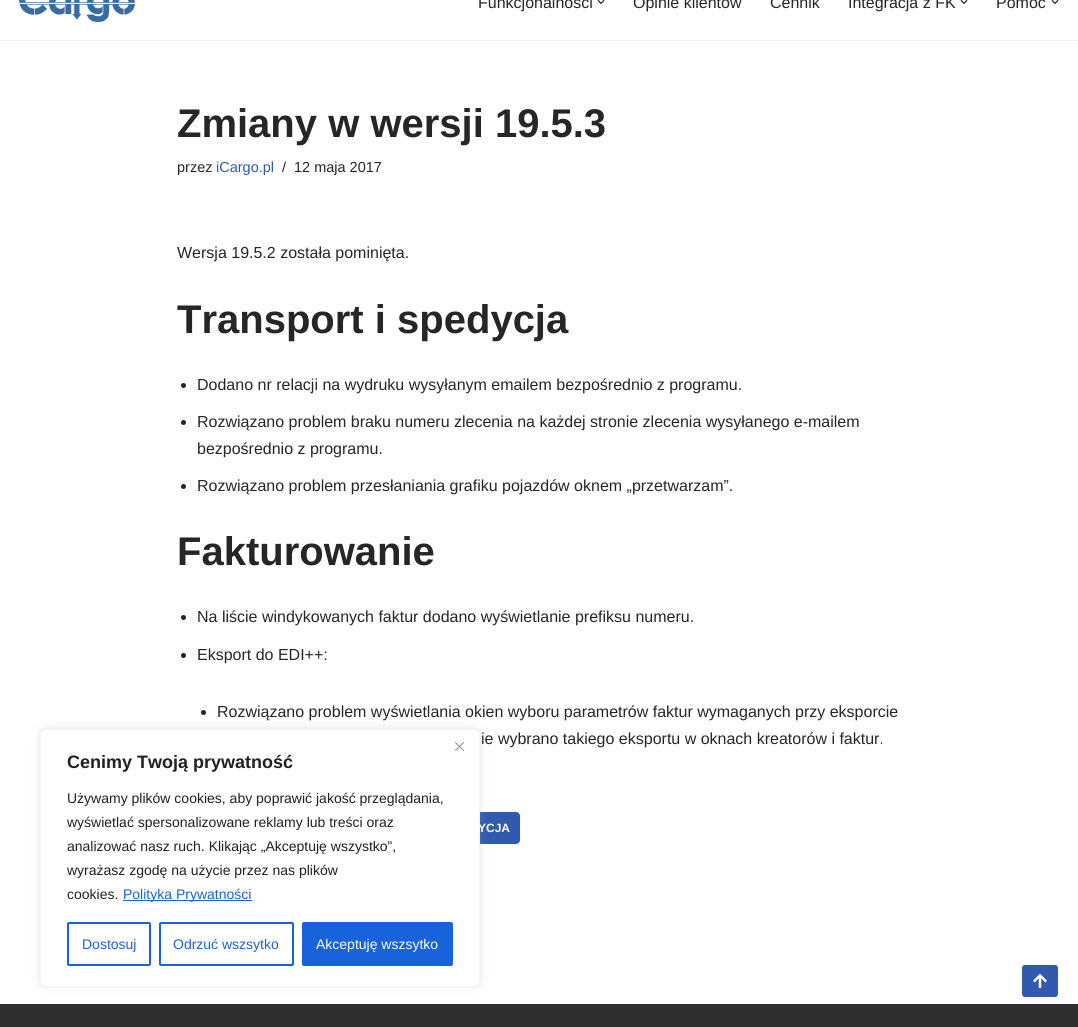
#include <cairo.h>
#include <math.h>
#include <stddef.h>

static cairo_t *c;
static void C(unsigned color){cairo_set_source_rgb(c, (color >> 16) / 255.0, (color >> 8 & 255) / 255.0, (color & 255) / 255.0);}
static void F(const char *family, double size, int italic, int bold){cairo_select_font_face(c, family, italic ? CAIRO_FONT_SLANT_ITALIC : CAIRO_FONT_SLANT_NORMAL,bold ? CAIRO_FONT_WEIGHT_BOLD : CAIRO_FONT_WEIGHT_NORMAL);cairo_set_font_size(c, size);}
static void T(double x, double y, const char *s){cairo_move_to(c, x, y);cairo_show_text(c, s);}
static void R(double x, double y, double w, double h){cairo_rectangle(c, x, y, w, h);cairo_fill(c);}
static void Q(double x, double y, double w, double h, double r){cairo_new_sub_path(c);cairo_arc(c, x + w - r, y + h - r, r, 0, M_PI / 2);cairo_arc(c, x + r, y + h - r, r, M_PI / 2, M_PI);cairo_arc(c, x + r, y + r, r, M_PI, 1.5 * M_PI);cairo_arc(c, x + w - r, y + r, r, 1.5 * M_PI, 2 * M_PI);cairo_close_path(c);}
static void S(double x, double y, double w, double h, double r, double blur, double alpha){cairo_push_group_with_content(c, CAIRO_CONTENT_ALPHA);cairo_set_operator(c, CAIRO_OPERATOR_SOURCE);for (int i = 15; i >= -15 && fmin(w, h) + blur * i / 3 > 0; i -= 2) {double e = blur * i / 6;cairo_set_source_rgba(c, 0, 0, 0, alpha * erfc((i - 1) / 8.5) / 2);Q(x - e, y - e, w + 2 * e, h + 2 * e, fmax(0, fmin(r + e + blur * .6, fmin(w, h) / 2 + e)));cairo_fill(c);}cairo_pattern_t *soft = cairo_pop_group(c);cairo_mask(c, soft);cairo_pattern_destroy(soft);}
static void I(const char *path, double x, double y, double w, double h){cairo_surface_t *image = cairo_image_surface_create_from_png(path);cairo_save(c);cairo_set_source_surface(c, image, x, y);cairo_rectangle(c, x, y, w, h);cairo_fill(c);cairo_restore(c);cairo_surface_destroy(image);}
int main(void) {
cairo_surface_t *surface = cairo_image_surface_create(CAIRO_FORMAT_RGB24, 1078, 1027);
c = cairo_create(surface);
cairo_font_options_t *options = cairo_font_options_create();
cairo_font_options_set_hint_metrics(options, CAIRO_HINT_METRICS_OFF);
cairo_font_options_set_hint_style(options, CAIRO_HINT_STYLE_NONE);
cairo_set_font_options(c, options);
cairo_set_miter_limit(c, 4);
C(0xffffff);
cairo_paint(c);
C(0xf4f5f7);
R(0,40,1078,1);
I("1.png",19,0,116,22);
F("Liberation Sans",16,0,0);
C(0x272626);
T(478,8,"Funkcjonalności");
I("2.png",597,0,8,4);
T(633,8,"Opinie klientów");
T(770,8,"Cennik");
T(848,8,"Integracja z FK");
I("2.png",960,0,8,4);
T(996,8,"Pomoc");
I("2.png",1051,0,8,4);
F("Liberation Sans",40,0,1);
T(177,137,"Zmiany w wersji 19.5.3");
F("Liberation Sans",14.5,0,0);
T(177,172,"przez");
C(0x2f5aae);
T(216,172,"iCargo.pl");
C(0x272626);
T(282,172,"/");
T(294,172,"12 maja 2017");
F("Liberation Sans",16,0,0);
T(177,258,"Wersja 19.5.2 została pominięta.");
F("Liberation Sans",40,0,1);
T(177,333,"Transport i spedycja");
cairo_new_path(c);
cairo_arc(c,183.5,385.5,2.5,0,2 * M_PI);
cairo_fill(c);
F("Liberation Sans",16,0,0);
T(197,390,"Dodano nr relacji na wydruku wysyłanym emailem bezpośrednio z programu.");
cairo_new_path(c);
cairo_arc(c,183.5,422.5,2.5,0,2 * M_PI);
cairo_fill(c);
T(197,427,"Rozwiązano problem braku numeru zlecenia na każdej stronie zlecenia wysyłanego e-mailem");
T(197,454,"bezpośrednio z programu.");
cairo_new_path(c);
cairo_arc(c,183.5,486.5,2.5,0,2 * M_PI);
cairo_fill(c);
T(197,491,"Rozwiązano problem przesłaniania grafiku pojazdów oknem „przetwarzam”.");
F("Liberation Sans",40,0,1);
T(177,565,"Fakturowanie");
cairo_new_path(c);
cairo_arc(c,183.5,617.5,2.5,0,2 * M_PI);
cairo_fill(c);
F("Liberation Sans",16,0,0);
T(197,622,"Na liście windykowanych faktur dodano wyświetlanie prefiksu numeru.");
cairo_new_path(c);
cairo_arc(c,183.5,655.5,2.5,0,2 * M_PI);
cairo_fill(c);
T(197,660,"Eksport do EDI++:");
cairo_new_path(c);
cairo_arc(c,203.5,712.5,2.5,0,2 * M_PI);
cairo_fill(c);
T(217,717,"Rozwiązano problem wyświetlania okien wyboru parametrów faktur wymaganych przy eksporcie");
T(481,744,"ie wybrano takiego eksportu w oknach kreatorów i faktur.");
C(0x2f5aae);
Q(351,812,169,32,4);
cairo_fill(c);
F("Liberation Sans",12,0,1);
C(0xffffff);
T(478,832,"YCJA");
C(0x2f5aae);
Q(1022,965,36,32,3);
cairo_fill(c);
I("3.png",1033,974,14,14);
C(0x2f2f2f);
R(0,1004,1078,23);
C(0xacabab);
S(40,728,440,258,6,5,.3);
C(0xffffff);
Q(40.5,729.5,439,257,5.5);
cairo_fill_preserve(c);
C(0xf4f4f4);
cairo_set_line_width(c,1);
cairo_stroke(c);
I("4.png",455,742,9,9);
F("Liberation Sans",18,0,1);
C(0x212121);
T(67,768,"Cenimy Twoją prywatność");
F("Liberation Sans",14,0,0);
T(67,803,"Używamy plików cookies, aby poprawić jakość przeglądania,");
T(67,827,"wyświetlać spersonalizowane reklamy lub treści oraz");
T(67,851,"analizować nasz ruch. Klikając „Akceptuję wszystko”,");
T(67,875,"wyrażasz zgodę na użycie przez nas plików");
T(67,899,"cookies.");
C(0x1863dc);
R(123,900,129,1);
T(123,899,"Polityka Prywatności");
Q(68,923,82,42,1);
cairo_set_line_width(c,2);
cairo_stroke(c);
T(82,949,"Dostosuj");
Q(160,923,133,42,1);
cairo_stroke(c);
T(173,949,"Odrzuć wszsytko");
Q(303,923,149,42,1);
cairo_fill_preserve(c);
cairo_stroke(c);
C(0xffffff);
T(316,949,"Akceptuję wszsytko");
cairo_surface_write_to_png(surface, "o.png");
cairo_font_options_destroy(options);
cairo_destroy(c);
cairo_surface_destroy(surface);
return 0;
}
